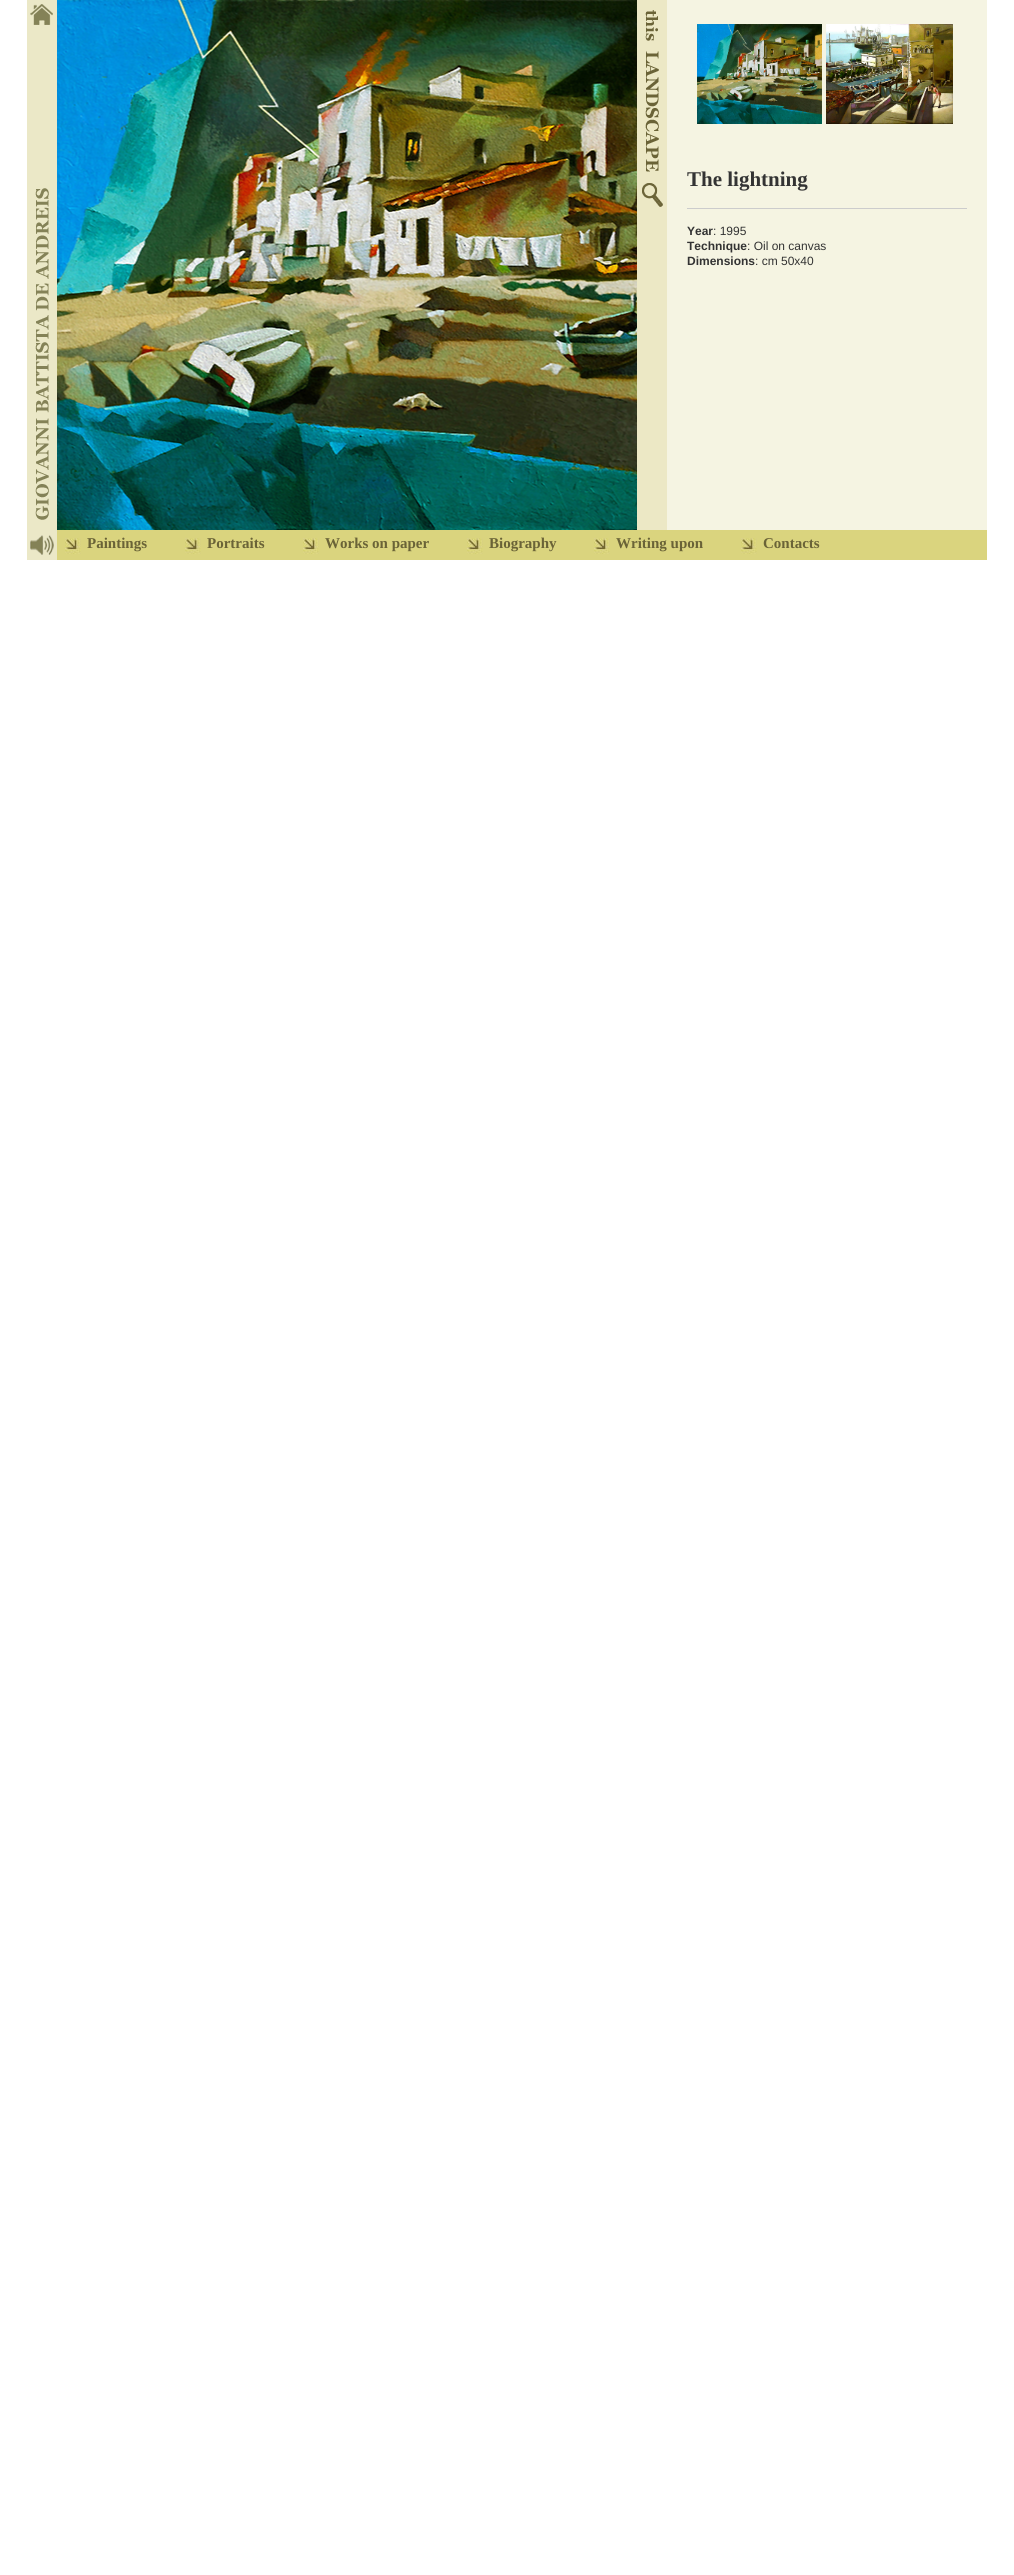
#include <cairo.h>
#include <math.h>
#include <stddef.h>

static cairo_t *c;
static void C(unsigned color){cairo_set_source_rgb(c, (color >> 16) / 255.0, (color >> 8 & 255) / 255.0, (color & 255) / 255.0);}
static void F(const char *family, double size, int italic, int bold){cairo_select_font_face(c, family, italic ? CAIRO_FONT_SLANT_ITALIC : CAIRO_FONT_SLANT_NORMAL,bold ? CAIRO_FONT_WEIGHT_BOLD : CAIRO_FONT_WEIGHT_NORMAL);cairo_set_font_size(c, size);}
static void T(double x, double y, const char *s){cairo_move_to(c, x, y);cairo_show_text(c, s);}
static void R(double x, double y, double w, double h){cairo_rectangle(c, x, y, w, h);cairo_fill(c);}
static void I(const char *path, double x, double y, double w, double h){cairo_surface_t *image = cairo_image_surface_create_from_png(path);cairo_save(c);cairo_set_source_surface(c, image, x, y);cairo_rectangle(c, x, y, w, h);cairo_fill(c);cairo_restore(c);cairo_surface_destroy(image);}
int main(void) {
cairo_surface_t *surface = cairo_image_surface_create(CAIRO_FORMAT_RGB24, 1014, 2575);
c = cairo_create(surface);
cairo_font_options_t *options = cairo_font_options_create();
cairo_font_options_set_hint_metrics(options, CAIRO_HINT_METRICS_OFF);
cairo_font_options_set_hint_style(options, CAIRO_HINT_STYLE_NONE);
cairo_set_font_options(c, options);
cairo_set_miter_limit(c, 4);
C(0xffffff);
cairo_paint(c);
C(0xf5f4e2);
R(667,0,320,530);
I("1.png",27,0,30,530);
I("2.png",57,0,580,530);
I("3.png",637,0,30,530);
I("4.png",697,24,125,100);
I("5.png",826,24,127,100);
F("Liberation Serif",21,0,1);
C(0x333333);
T(687,186,"The lightning");
C(0xcccccc);
R(687,208,280,1);
F("Liberation Sans",12,0,1);
C(0x333333);
T(687,235,"Year");
F("Liberation Sans",12,0,0);
T(713,235,": 1995");
F("Liberation Sans",12,0,1);
T(687,250,"Technique");
F("Liberation Sans",12,0,0);
T(747,250,": Oil on canvas");
F("Liberation Sans",12,0,1);
T(687,265,"Dimensions");
F("Liberation Sans",12,0,0);
T(755,265,": cm 50x40");
C(0xebe8c7);
R(27,530,30,30);
I("6.png",30,535,24,20);
C(0xdad47e);
R(57,530,930,30);
I("7.png",65,538,16,16);
F("Liberation Serif",15,0,1);
C(0x6a6337);
T(87,548,"Paintings");
I("8.png",185,538,16,16);
T(207,548,"Portraits");
I("7.png",303,538,16,16);
T(325,548,"Works on paper");
I("9.png",467,538,16,16);
T(489,548,"Biography");
I("7.png",594,538,16,16);
T(616,548,"Writing upon");
I("10.png",741,538,16,16);
T(763,548,"Contacts");
cairo_surface_write_to_png(surface, "o.png");
cairo_font_options_destroy(options);
cairo_destroy(c);
cairo_surface_destroy(surface);
return 0;
}
